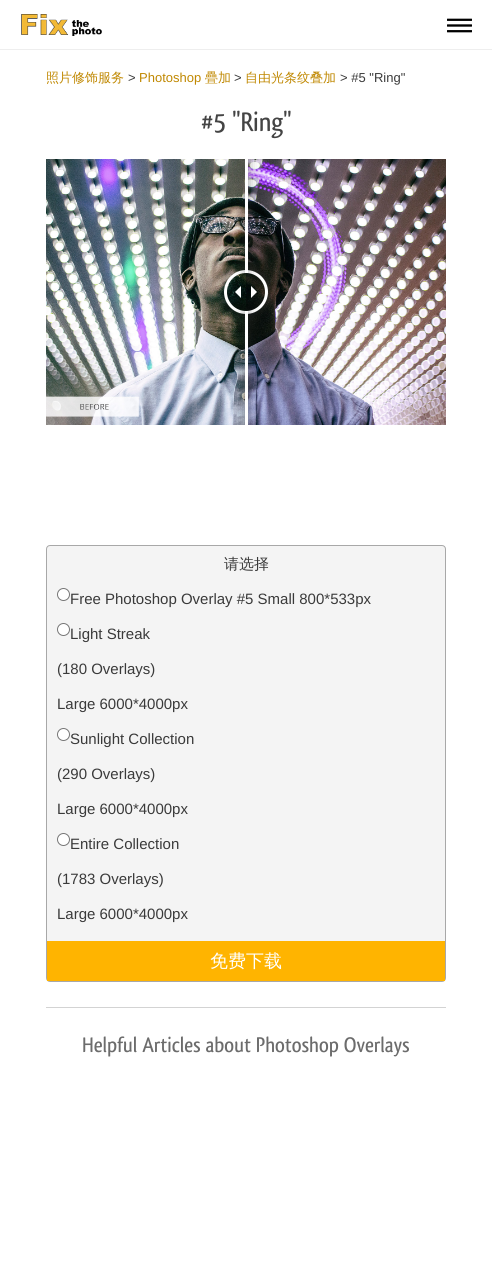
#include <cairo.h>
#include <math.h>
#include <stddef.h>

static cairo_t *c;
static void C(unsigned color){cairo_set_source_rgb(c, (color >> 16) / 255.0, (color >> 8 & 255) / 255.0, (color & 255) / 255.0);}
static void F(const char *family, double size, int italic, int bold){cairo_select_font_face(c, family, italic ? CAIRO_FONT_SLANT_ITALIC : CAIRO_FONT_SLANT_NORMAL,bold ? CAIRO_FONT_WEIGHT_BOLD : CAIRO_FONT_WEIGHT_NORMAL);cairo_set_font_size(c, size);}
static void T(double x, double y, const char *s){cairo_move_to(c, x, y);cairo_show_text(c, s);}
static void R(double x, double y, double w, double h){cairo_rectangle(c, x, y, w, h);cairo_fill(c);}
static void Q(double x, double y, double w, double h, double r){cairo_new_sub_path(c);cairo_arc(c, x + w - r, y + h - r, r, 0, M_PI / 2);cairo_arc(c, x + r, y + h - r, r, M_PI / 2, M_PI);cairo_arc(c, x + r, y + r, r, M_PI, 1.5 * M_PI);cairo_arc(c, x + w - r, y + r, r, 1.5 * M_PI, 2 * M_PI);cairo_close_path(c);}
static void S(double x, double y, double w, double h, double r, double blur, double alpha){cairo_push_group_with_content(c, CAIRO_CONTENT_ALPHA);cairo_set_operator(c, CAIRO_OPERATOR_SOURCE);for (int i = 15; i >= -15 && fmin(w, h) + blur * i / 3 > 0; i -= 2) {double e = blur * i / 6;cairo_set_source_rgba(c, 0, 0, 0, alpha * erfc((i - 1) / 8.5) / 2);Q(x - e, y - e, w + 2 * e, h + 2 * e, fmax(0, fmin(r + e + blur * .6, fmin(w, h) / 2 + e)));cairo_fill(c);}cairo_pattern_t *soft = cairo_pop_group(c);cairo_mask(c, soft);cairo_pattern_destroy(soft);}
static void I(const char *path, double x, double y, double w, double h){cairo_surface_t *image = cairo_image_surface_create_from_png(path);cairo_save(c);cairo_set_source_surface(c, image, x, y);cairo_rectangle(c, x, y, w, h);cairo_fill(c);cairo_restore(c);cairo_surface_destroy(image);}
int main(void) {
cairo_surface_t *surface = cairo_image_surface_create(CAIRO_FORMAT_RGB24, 492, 1275);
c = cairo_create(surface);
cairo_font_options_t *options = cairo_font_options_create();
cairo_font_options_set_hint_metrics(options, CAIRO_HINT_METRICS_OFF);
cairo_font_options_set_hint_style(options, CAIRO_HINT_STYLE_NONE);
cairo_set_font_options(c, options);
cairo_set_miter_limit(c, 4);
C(0xffffff);
cairo_paint(c);
I("3.png",46,159,200,266);
I("4.png",246,159,200,266);
cairo_save(c);
cairo_set_fill_rule(c,CAIRO_FILL_RULE_EVEN_ODD);
cairo_new_path(c);
cairo_move_to(c,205,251);
cairo_line_to(c,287,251);
cairo_line_to(c,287,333);
cairo_line_to(c,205,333);
cairo_close_path(c);
cairo_move_to(c,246,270);
cairo_curve_to(c,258,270,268,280,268,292);
cairo_curve_to(c,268,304,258,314,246,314);
cairo_curve_to(c,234,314,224,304,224,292);
cairo_curve_to(c,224,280,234,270,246,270);
cairo_close_path(c);
cairo_clip(c);
C(0x333333);
S(224,270,44,44,22,6,.5);
cairo_restore(c);
cairo_arc(c,246,292,20.5,0,2 * M_PI);
C(0xffffff);
cairo_set_line_width(c,3);
cairo_stroke(c);
cairo_new_path(c);
cairo_move_to(c,241,286);
cairo_line_to(c,241,298);
cairo_line_to(c,235,292);
cairo_close_path(c);
cairo_move_to(c,251,298);
cairo_line_to(c,251,286);
cairo_line_to(c,257,292);
cairo_close_path(c);
cairo_fill(c);
cairo_save(c);
cairo_rectangle(c,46,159,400,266);
cairo_clip(c);
C(0x333333);
S(245,-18,3,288,0,6,.5);
cairo_restore(c);
C(0xeeeeee);
R(0,49,492,1);
I("1.png",21,14,81,22);
I("2.png",447,18,25,15);
F("WenQuanYi Zen Hei Medium",13,0,0);
C(0xc08801);
T(46,82,"照片修饰服务");
F("Liberation Sans",13,0,0);
C(0x3a3a3a);
T(128,82,">");
C(0xc08801);
T(139,82,"Photoshop");
F("WenQuanYi Zen Hei Medium",13,0,0);
T(205,82,"疊加");
F("Liberation Sans",13,0,0);
C(0x3a3a3a);
T(234,82,">");
F("WenQuanYi Zen Hei Medium",13,0,0);
C(0xc08801);
T(245,82,"自由光条纹叠加");
F("Liberation Sans",13,0,0);
C(0x3a3a3a);
T(340,82,"> #5 \"Ring\"");
F("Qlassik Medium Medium",28,0,0);
C(0x444444);
T(201,131,"#5 \"Ring\"");
C(0xffffff);
cairo_new_path(c);
cairo_move_to(c,245,270);
cairo_line_to(c,245,273);
cairo_line_to(c,248,273);
cairo_line_to(c,248,270);
cairo_close_path(c);
cairo_fill(c);
R(245,159,3,111);
C(0xf4f4f4);
Q(46.5,545.5,399,436,3.5);
cairo_fill_preserve(c);
C(0xa8a8a8);
cairo_set_line_width(c,1);
cairo_stroke(c);
C(0xffb400);
R(47,941,398,40);
C(0xd3d3d3);
R(46,1007,400,1);
cairo_save(c);
cairo_rectangle(c,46,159,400,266);
cairo_clip(c);
C(0x333333);
S(245,314,3,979,0,6,.5);
cairo_restore(c);
C(0xffffff);
cairo_new_path(c);
cairo_move_to(c,245,311);
cairo_line_to(c,245,314);
cairo_line_to(c,248,314);
cairo_line_to(c,248,311);
cairo_close_path(c);
cairo_fill(c);
R(245,314,3,111);
F("WenQuanYi Zen Hei Medium",15,0,0);
C(0x3a3a3a);
T(224,569,"请选择");
C(0xffffff);
cairo_new_path(c);
cairo_arc(c,63.5,594.5,6,0,2 * M_PI);
cairo_fill_preserve(c);
C(0x767676);
cairo_stroke(c);
F("Liberation Sans",15,0,0);
C(0x3a3a3a);
T(70,604,"Free Photoshop Overlay #5 Small 800*533px");
C(0xffffff);
cairo_new_path(c);
cairo_arc(c,63.5,629.5,6,0,2 * M_PI);
cairo_fill_preserve(c);
C(0x767676);
cairo_stroke(c);
C(0x3a3a3a);
T(70,639,"Light Streak");
T(57,674,"(180 Overlays)");
T(57,709,"Large 6000*4000px");
C(0xffffff);
cairo_new_path(c);
cairo_arc(c,63.5,734.5,6,0,2 * M_PI);
cairo_fill_preserve(c);
C(0x767676);
cairo_stroke(c);
C(0x3a3a3a);
T(70,744,"Sunlight Collection");
T(57,779,"(290 Overlays)");
T(57,814,"Large 6000*4000px");
C(0xffffff);
cairo_new_path(c);
cairo_arc(c,63.5,839.5,6,0,2 * M_PI);
cairo_fill_preserve(c);
C(0x767676);
cairo_stroke(c);
C(0x3a3a3a);
T(70,849,"Entire Collection");
T(57,884,"(1783 Overlays)");
T(57,919,"Large 6000*4000px");
F("WenQuanYi Zen Hei Medium",18,0,0);
C(0xffffff);
T(210,967,"免费下载");
F("Qlassik Medium Medium",22,0,0);
C(0x6c6c6c);
T(82,1052,"Helpful Articles about Photoshop Overlays");
cairo_surface_write_to_png(surface, "o.png");
cairo_font_options_destroy(options);
cairo_destroy(c);
cairo_surface_destroy(surface);
return 0;
}
